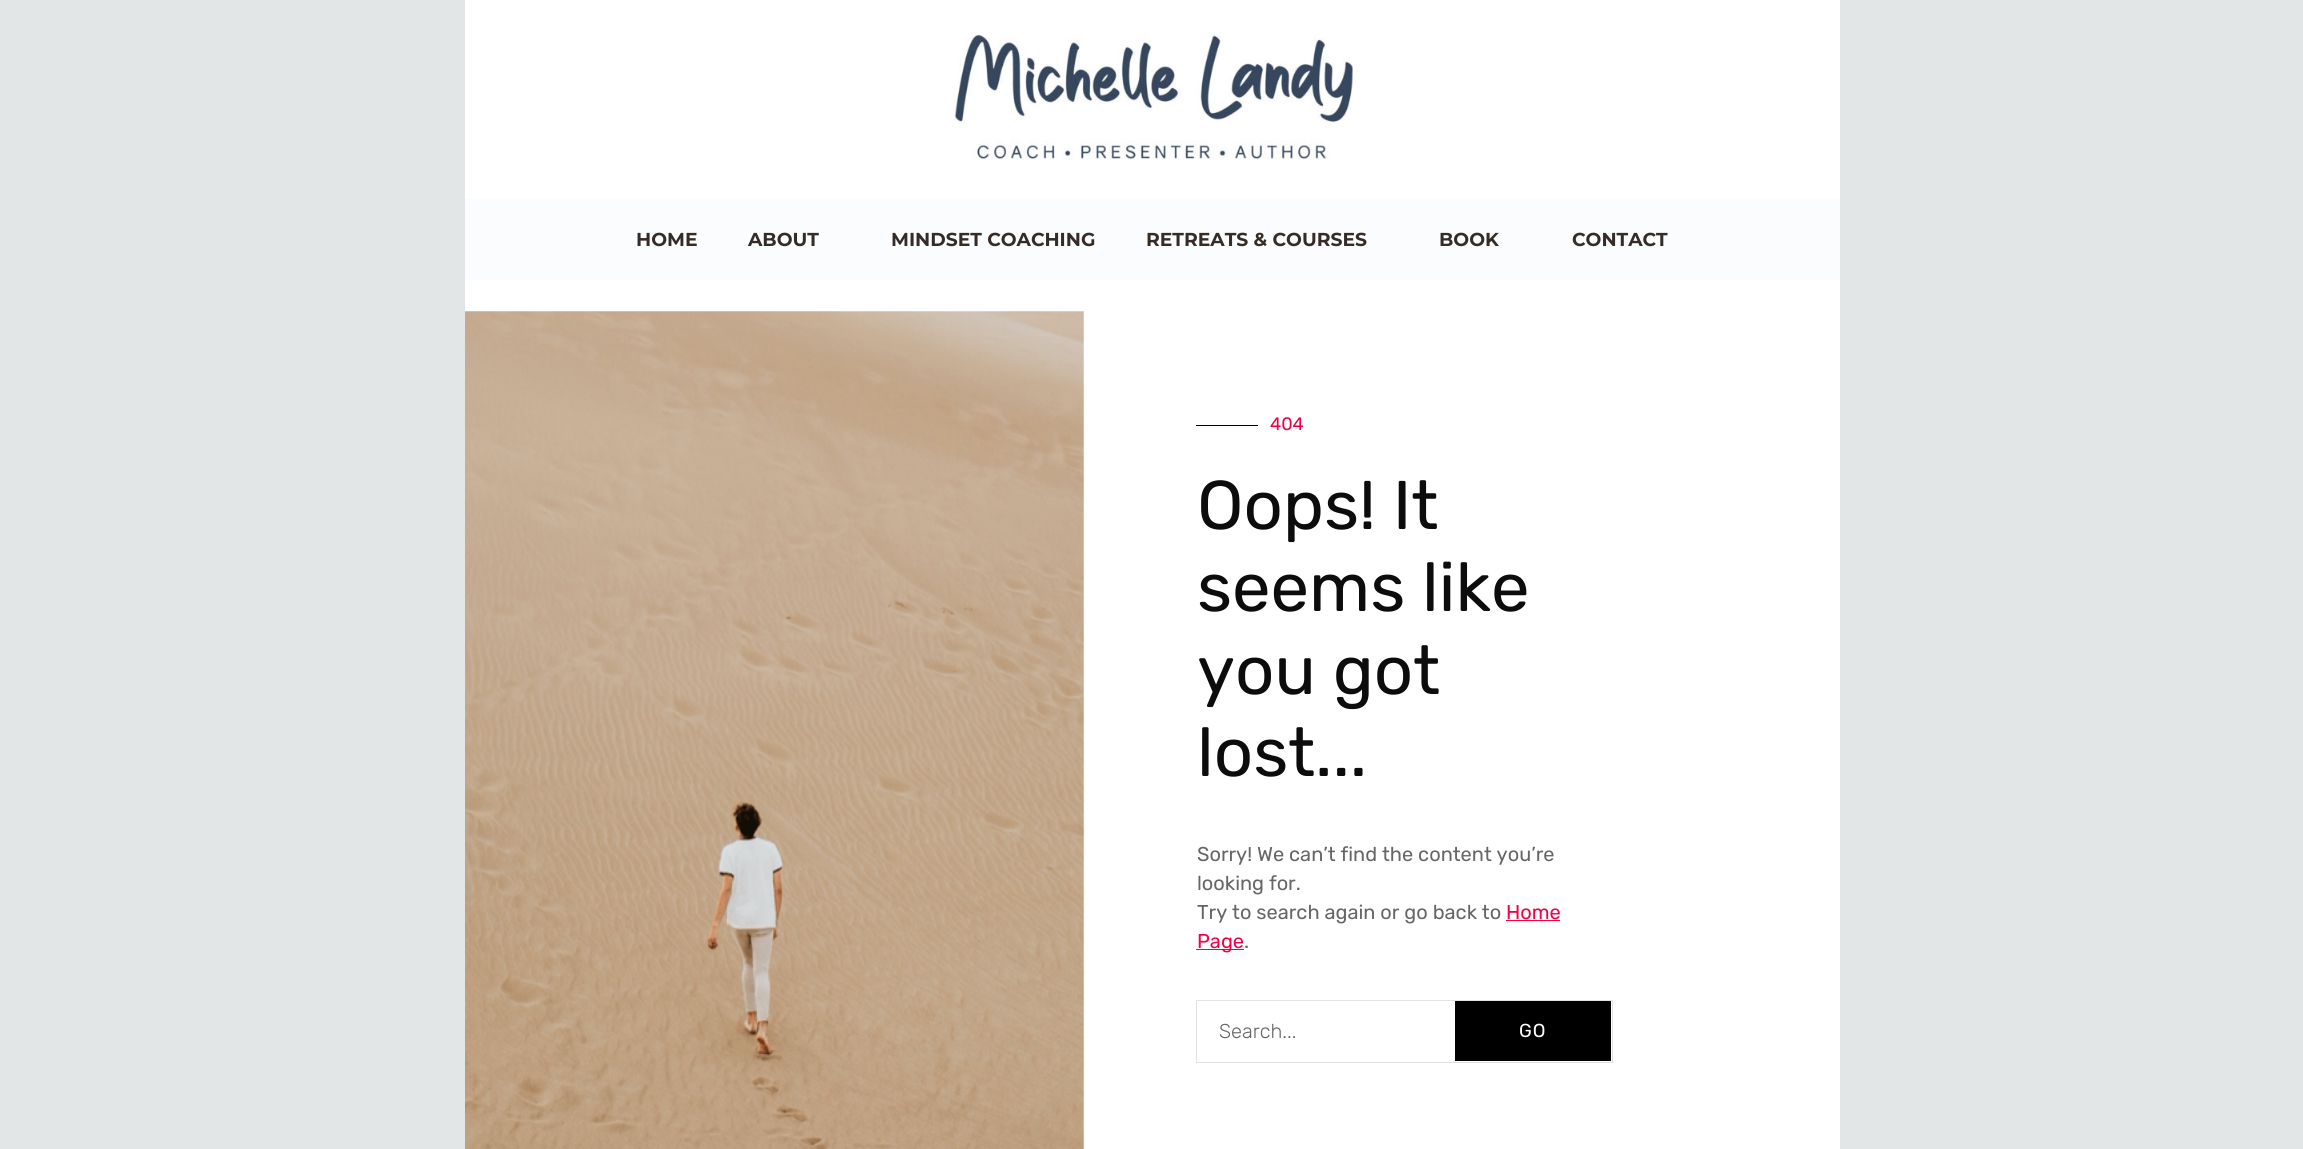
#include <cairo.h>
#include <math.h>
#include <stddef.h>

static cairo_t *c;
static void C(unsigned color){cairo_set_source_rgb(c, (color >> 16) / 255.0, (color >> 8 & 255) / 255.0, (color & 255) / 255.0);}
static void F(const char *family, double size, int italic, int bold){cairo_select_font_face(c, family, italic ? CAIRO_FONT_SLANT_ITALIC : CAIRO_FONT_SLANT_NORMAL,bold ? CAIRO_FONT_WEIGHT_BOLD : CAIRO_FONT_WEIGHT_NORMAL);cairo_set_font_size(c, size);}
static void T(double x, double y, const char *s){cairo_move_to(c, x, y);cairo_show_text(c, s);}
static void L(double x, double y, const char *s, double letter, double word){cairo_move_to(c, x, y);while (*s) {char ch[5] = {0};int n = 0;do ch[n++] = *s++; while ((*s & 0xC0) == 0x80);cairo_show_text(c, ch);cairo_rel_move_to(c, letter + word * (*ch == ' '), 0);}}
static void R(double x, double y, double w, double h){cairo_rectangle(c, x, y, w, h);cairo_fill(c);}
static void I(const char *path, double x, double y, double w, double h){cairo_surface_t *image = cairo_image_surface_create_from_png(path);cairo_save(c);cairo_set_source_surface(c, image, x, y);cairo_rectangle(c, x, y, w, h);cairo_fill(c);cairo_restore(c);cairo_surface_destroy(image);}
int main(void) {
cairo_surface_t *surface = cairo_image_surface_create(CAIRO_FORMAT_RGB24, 2303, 1149);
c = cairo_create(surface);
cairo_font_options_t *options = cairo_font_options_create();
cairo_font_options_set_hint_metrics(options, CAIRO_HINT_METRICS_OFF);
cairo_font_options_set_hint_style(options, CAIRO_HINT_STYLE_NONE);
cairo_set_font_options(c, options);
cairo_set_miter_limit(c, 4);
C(0xe3e6e7);
cairo_paint(c);
C(0xffffff);
R(465,0,1375,1149);
I("1.png",953,31,400,129);
C(0xfbfcfd);
R(465,199,1375,81);
F("Montserrat",18.75,0,1);
C(0x352c28);
T(636,246,"HOME");
T(748,246,"ABOUT");
T(891,246,"MINDSET COACHING");
T(1146,246,"RETREATS & COURSES");
T(1439,246,"BOOK");
T(1572,246,"CONTACT");
I("2.png",465,311,619,838);
C(0x000000);
R(1196,425,62,1);
F("Rubik",18,0,0);
C(0xf40045);
T(1270,430,"404");
F("Rubik",68.75,0,0);
C(0x0c0c0c);
T(1197,529,"Oops! It");
T(1197,611,"seems like");
T(1197,694,"you got");
T(1197,776,"lost...");
F("Rubik",20,0,0);
C(0x666666);
T(1197,861,"Sorry! We can’t find the content you’re");
T(1197,890,"looking for.");
T(1197,919,"Try to search again or go back to");
C(0xf40045);
T(1506,919,"Home");
R(1506,920,54,1);
R(1196,949,48,1);
T(1197,948,"Page");
C(0x666666);
T(1244,948,".");
cairo_rectangle(c,1196.5,1000.5,416,62);
C(0xe2e2e2);
cairo_set_line_width(c,1);
cairo_stroke(c);
F("Rubik Light",20,0,0);
C(0x666666);
T(1219,1038,"Search...");
C(0x000000);
R(1455,1001,156,60);
F("Rubik",18.75,0,0);
C(0xffffff);
L(1519,1037,"GO",1,0);
cairo_surface_write_to_png(surface, "o.png");
cairo_font_options_destroy(options);
cairo_destroy(c);
cairo_surface_destroy(surface);
return 0;
}
